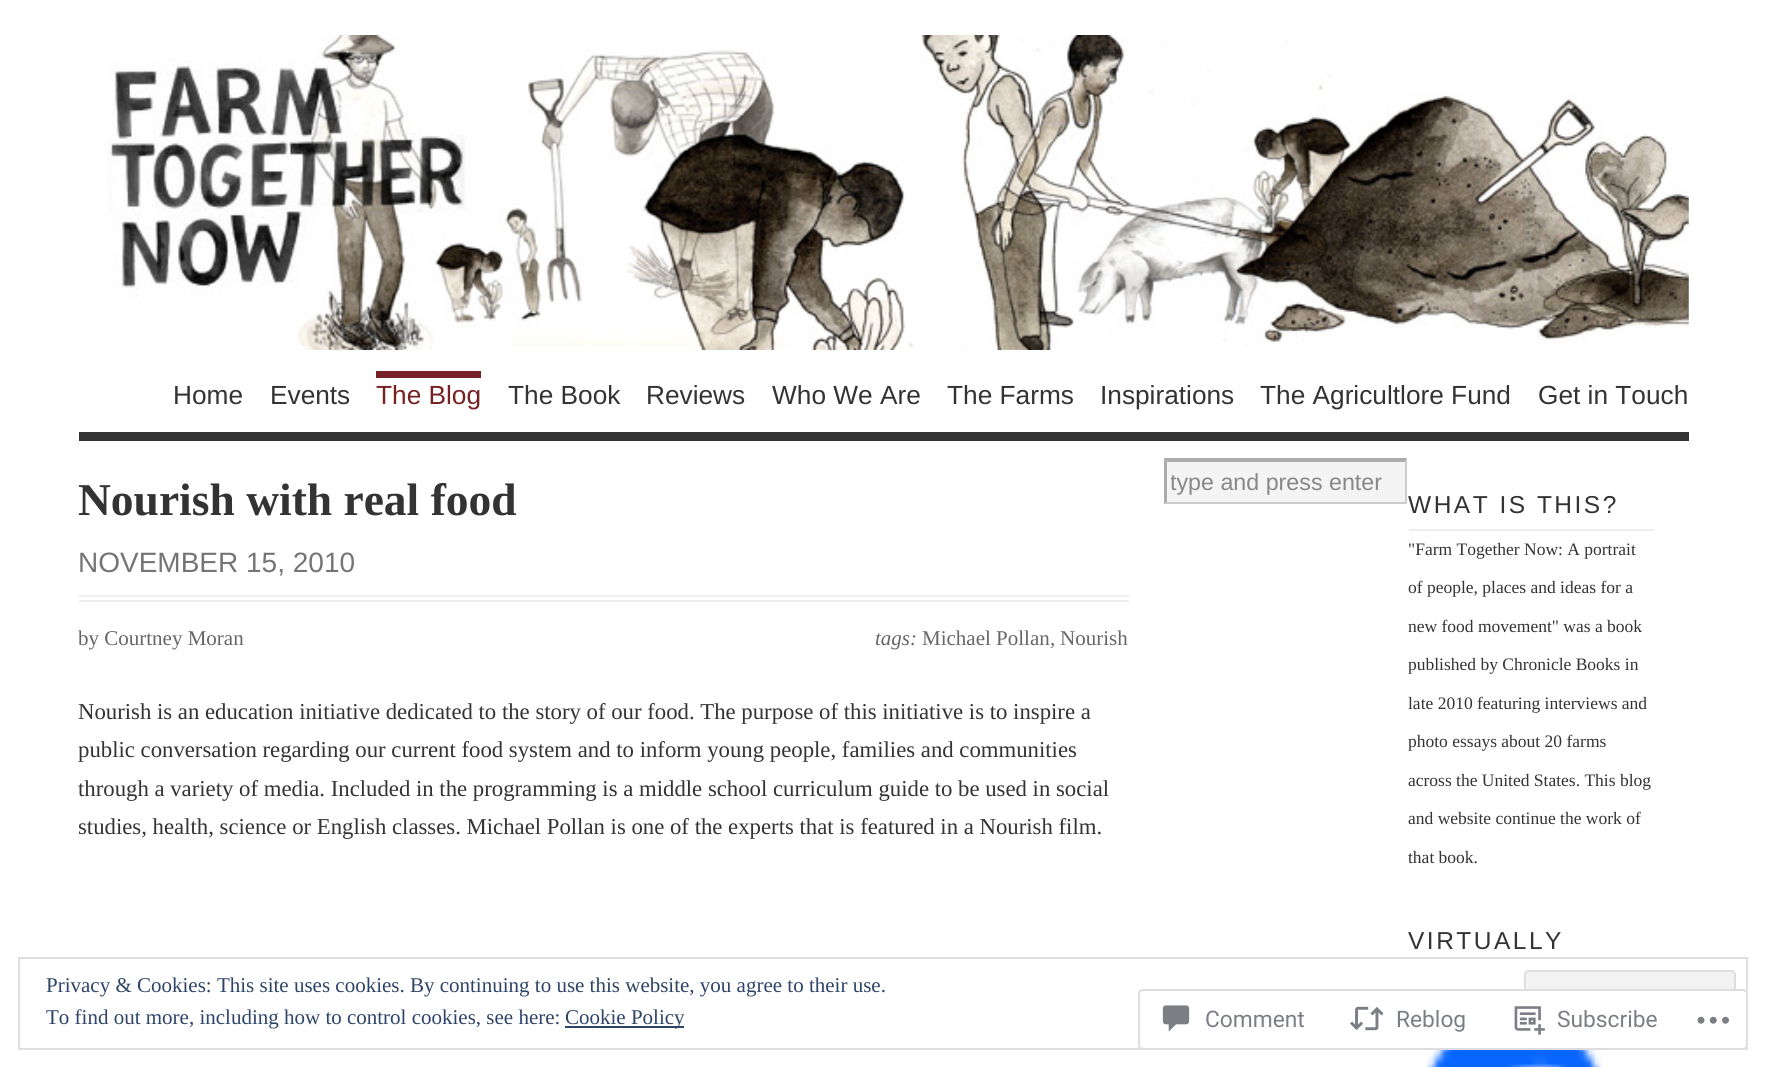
#include <cairo.h>
#include <math.h>
#include <stddef.h>

static cairo_t *c;
static void C(unsigned color){cairo_set_source_rgb(c, (color >> 16) / 255.0, (color >> 8 & 255) / 255.0, (color & 255) / 255.0);}
static void F(const char *family, double size, int italic, int bold){cairo_select_font_face(c, family, italic ? CAIRO_FONT_SLANT_ITALIC : CAIRO_FONT_SLANT_NORMAL,bold ? CAIRO_FONT_WEIGHT_BOLD : CAIRO_FONT_WEIGHT_NORMAL);cairo_set_font_size(c, size);}
static void T(double x, double y, const char *s){cairo_move_to(c, x, y);cairo_show_text(c, s);}
static void L(double x, double y, const char *s, double letter, double word){cairo_move_to(c, x, y);while (*s) {char ch[5] = {0};int n = 0;do ch[n++] = *s++; while ((*s & 0xC0) == 0x80);cairo_show_text(c, ch);cairo_rel_move_to(c, letter + word * (*ch == ' '), 0);}}
static void R(double x, double y, double w, double h){cairo_rectangle(c, x, y, w, h);cairo_fill(c);}
static void Q(double x, double y, double w, double h, double r){cairo_new_sub_path(c);cairo_arc(c, x + w - r, y + h - r, r, 0, M_PI / 2);cairo_arc(c, x + r, y + h - r, r, M_PI / 2, M_PI);cairo_arc(c, x + r, y + r, r, M_PI, 1.5 * M_PI);cairo_arc(c, x + w - r, y + r, r, 1.5 * M_PI, 2 * M_PI);cairo_close_path(c);}
static void I(const char *path, double x, double y, double w, double h){cairo_surface_t *image = cairo_image_surface_create_from_png(path);cairo_save(c);cairo_set_source_surface(c, image, x, y);cairo_rectangle(c, x, y, w, h);cairo_fill(c);cairo_restore(c);cairo_surface_destroy(image);}
int main(void) {
cairo_surface_t *surface = cairo_image_surface_create(CAIRO_FORMAT_RGB24, 1765, 1067);
c = cairo_create(surface);
cairo_font_options_t *options = cairo_font_options_create();
cairo_font_options_set_hint_metrics(options, CAIRO_HINT_METRICS_OFF);
cairo_font_options_set_hint_style(options, CAIRO_HINT_STYLE_NONE);
cairo_set_font_options(c, options);
cairo_set_miter_limit(c, 4);
C(0xffffff);
cairo_paint(c);
C(0x333333);
R(79,432,1610,9);
I("1.png",107,35,1582,315);
F("Liberation Sans",26.25,0,0);
T(173,404,"Home");
T(270,404,"Events");
C(0x772124);
T(376,404,"The Blog");
R(376,371,105,7);
C(0x333333);
T(508,404,"The Book");
T(646,404,"Reviews");
T(772,404,"Who We Are");
T(947,404,"The Farms");
T(1100,404,"Inspirations");
T(1260,404,"The Agricultlore Fund");
T(1538,404,"Get in Touch");
C(0xeeeeee);
R(79,595,1050,2);
R(79,600,1050,2);
F("Liberation Serif",45.5,0,1);
C(0x333333);
T(78,515,"Nourish with real food");
F("Liberation Sans",28,0,0);
C(0x757575);
T(78,572,"NOVEMBER 15, 2010");
F("Liberation Serif",21,0,0);
C(0x666666);
T(78,645,"by Courtney Moran");
F("Liberation Serif",21,1,0);
T(875,645,"tags:");
F("Liberation Serif",21,0,0);
T(922,645,"Michael Pollan");
F("Liberation Serif",21,1,0);
T(1050,645,",");
F("Liberation Serif",21,0,0);
T(1060,645,"Nourish");
F("Liberation Serif",22.75,0,0);
C(0x333333);
T(78,719,"Nourish is an education initiative dedicated to the story of our food. The purpose of this initiative is to inspire a");
T(78,757,"public conversation regarding our current food system and to inform young people, families and communities");
T(78,796,"through a variety of media. Included in the programming is a middle school curriculum guide to be used in social");
T(78,834,"studies, health, science or English classes. Michael Pollan is one of the experts that is featured in a Nourish film.");
C(0xf4f4f4);
R(1167,462,238,40);
C(0xacacac);
cairo_new_path(c);
cairo_move_to(c,1164,458);
cairo_line_to(c,1407,458);
cairo_line_to(c,1405,462);
cairo_line_to(c,1167,462);
cairo_close_path(c);
cairo_fill(c);
C(0xcccccc);
cairo_new_path(c);
cairo_move_to(c,1407,458);
cairo_line_to(c,1407,504);
cairo_line_to(c,1405,502);
cairo_line_to(c,1405,462);
cairo_close_path(c);
cairo_fill(c);
cairo_new_path(c);
cairo_move_to(c,1407,504);
cairo_line_to(c,1164,504);
cairo_line_to(c,1167,502);
cairo_line_to(c,1405,502);
cairo_close_path(c);
cairo_fill(c);
C(0xacacac);
cairo_new_path(c);
cairo_move_to(c,1164,504);
cairo_line_to(c,1164,458);
cairo_line_to(c,1167,462);
cairo_line_to(c,1167,502);
cairo_close_path(c);
cairo_fill(c);
cairo_save(c);
cairo_rectangle(c,1171,469,231,26);
cairo_clip(c);
F("Liberation Sans",23.25,0,0);
C(0x888888);
T(1170,490,"type and press enter");
cairo_restore(c);
C(0xeeeeee);
R(1409,529,245,2);
F("Liberation Sans",24.5,0,0);
C(0x333333);
L(1408,513,"WHAT IS THIS?",2.5,0);
F("Liberation Serif",17.5,0,0);
T(1408,555,"\"Farm Together Now: A portrait");
T(1408,593,"of people, places and ideas for a");
T(1408,632,"new food movement\" was a book");
T(1408,670,"published by Chronicle Books in");
T(1408,709,"late 2010 featuring interviews and");
T(1408,747,"photo essays about 20 farms");
T(1408,786,"across the United States. This blog");
T(1408,824,"and website continue the work of");
T(1408,863,"that book.");
F("Liberation Sans",24.5,0,0);
L(1408,949,"VIRTUALLY",2.5,0);
I("2.png",1426,1050,176,17);
cairo_rectangle(c,19,958,1728,91);
C(0xdedede);
cairo_stroke(c);
F("Liberation Serif",21,0,0);
C(0x2e4467);
T(46,992,"Privacy & Cookies: This site uses cookies. By continuing to use this website, you agree to their use.");
C(0xf3f3f3);
Q(1525,971,210,66,4);
cairo_fill_preserve(c);
C(0xdedede);
cairo_stroke(c);
C(0x2e4467);
T(46,1024,"To find out more, including how to control cookies, see here:");
R(565,1026,119,2);
T(565,1024,"Cookie Policy");
cairo_set_source_rgba(c,1,1,1,0.98);
Q(1138,989,610,61,5);
cairo_fill(c);
Q(1139,990,608,59,4);
cairo_set_source_rgba(c,0.863,0.863,0.871,0.98);
cairo_stroke(c);
I("3.png",1162,1005,28,27);
F("Roboto",22.75,0,0);
C(0x7b7f85);
T(1205,1027,"Comment");
I("4.png",1350,1006,34,25);
T(1396,1027,"Reblog");
I("5.png",1514,1006,31,29);
T(1557,1027,"Subscribe");
I("6.png",1697,1016,32,8);
cairo_surface_write_to_png(surface, "o.png");
cairo_font_options_destroy(options);
cairo_destroy(c);
cairo_surface_destroy(surface);
return 0;
}
